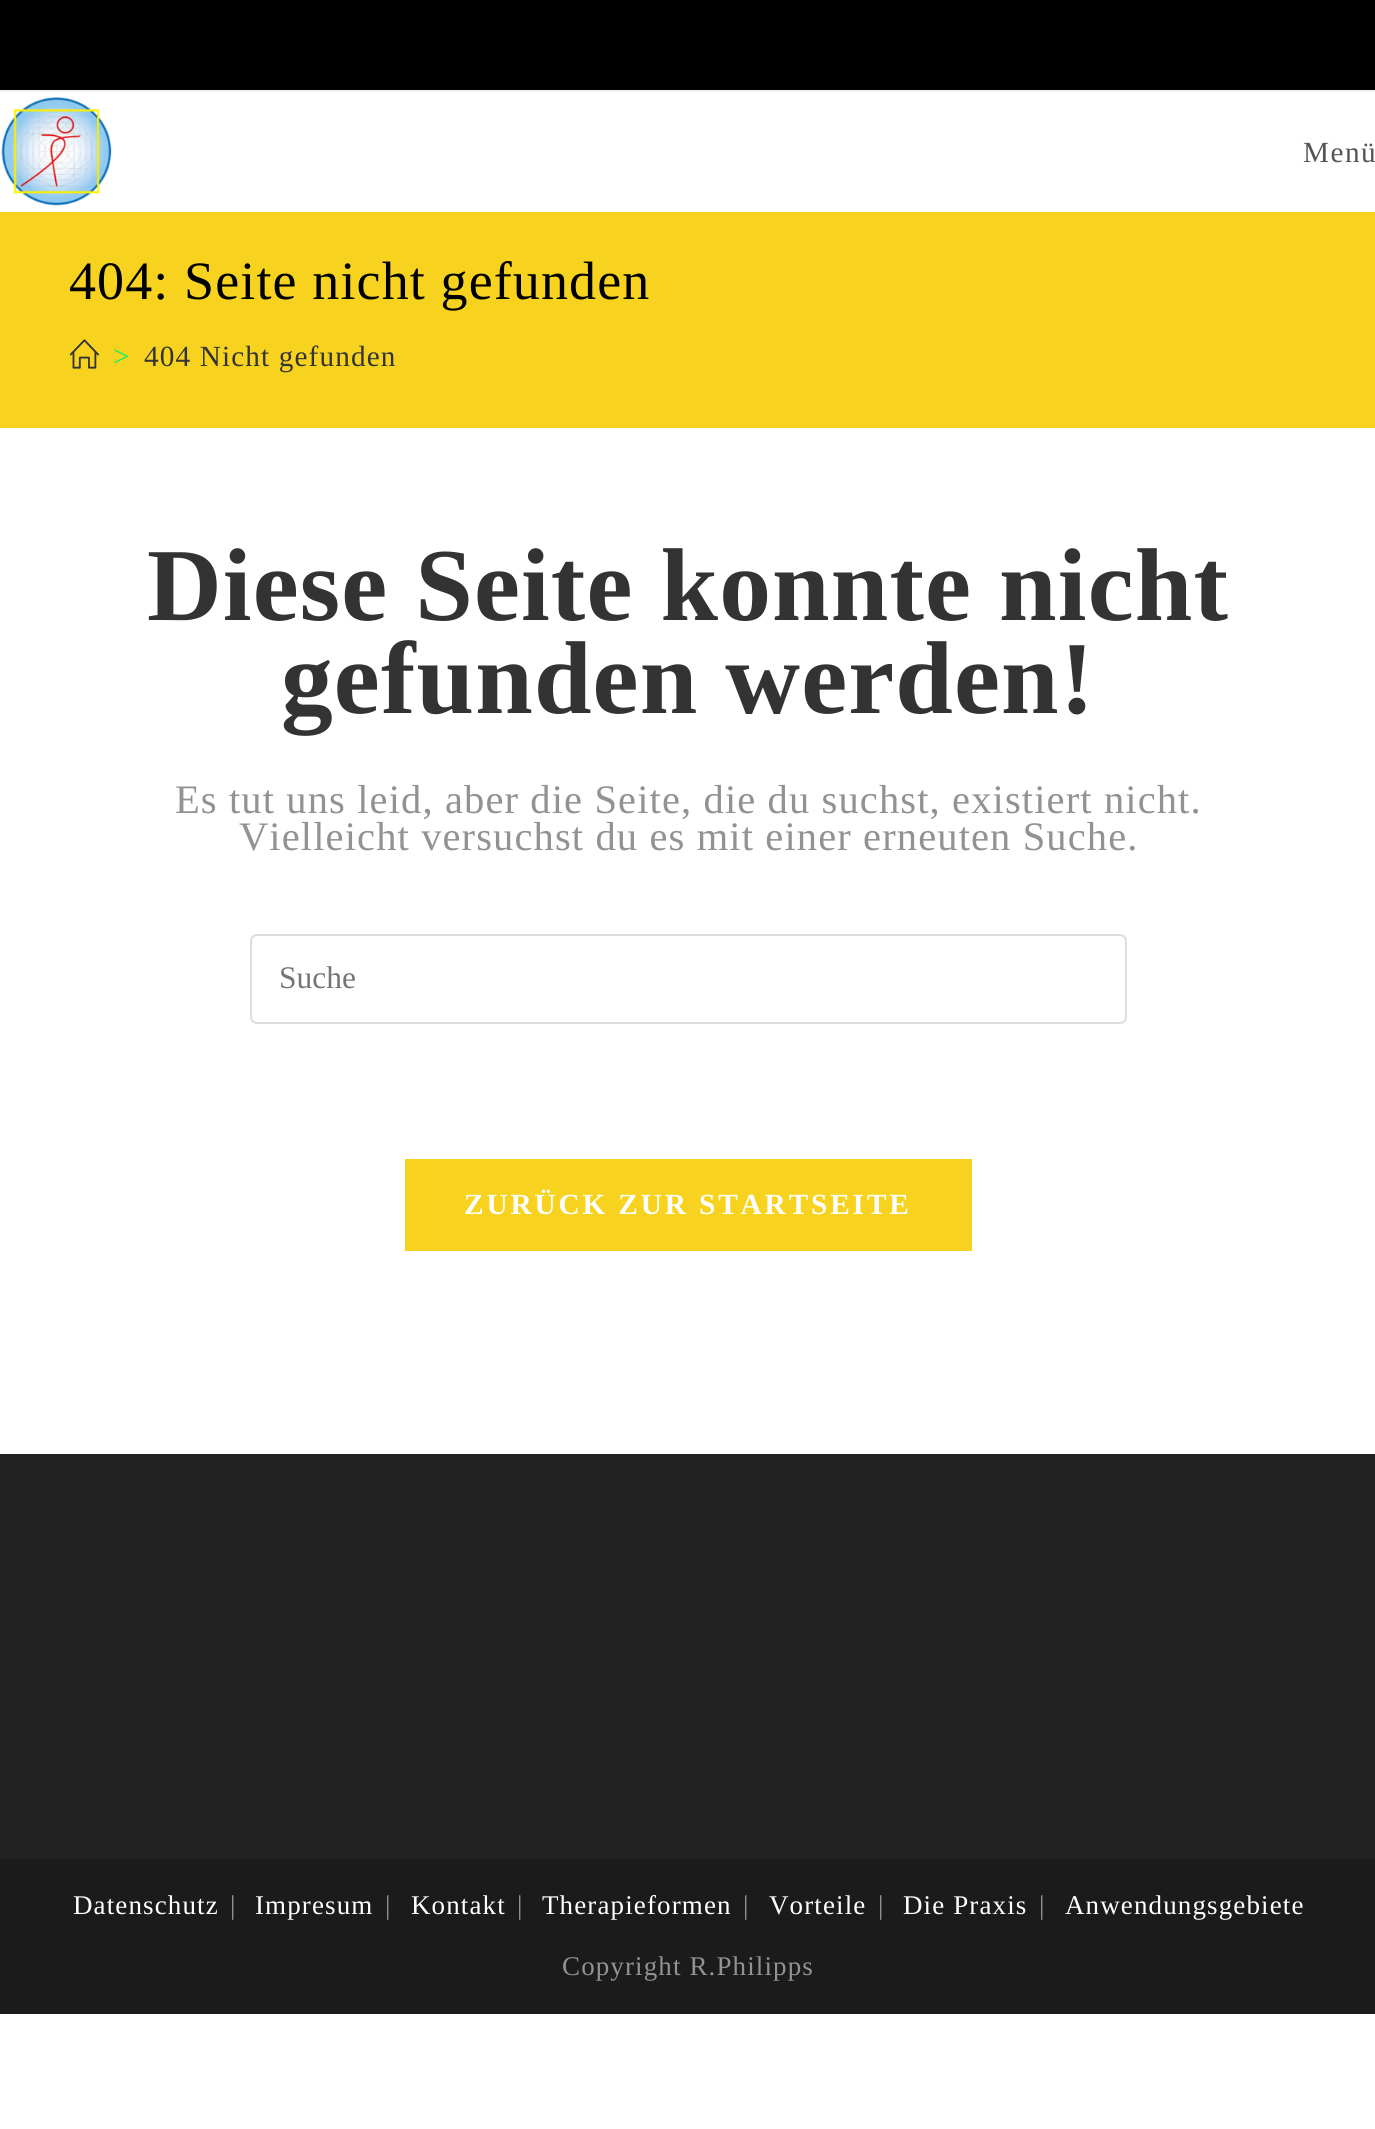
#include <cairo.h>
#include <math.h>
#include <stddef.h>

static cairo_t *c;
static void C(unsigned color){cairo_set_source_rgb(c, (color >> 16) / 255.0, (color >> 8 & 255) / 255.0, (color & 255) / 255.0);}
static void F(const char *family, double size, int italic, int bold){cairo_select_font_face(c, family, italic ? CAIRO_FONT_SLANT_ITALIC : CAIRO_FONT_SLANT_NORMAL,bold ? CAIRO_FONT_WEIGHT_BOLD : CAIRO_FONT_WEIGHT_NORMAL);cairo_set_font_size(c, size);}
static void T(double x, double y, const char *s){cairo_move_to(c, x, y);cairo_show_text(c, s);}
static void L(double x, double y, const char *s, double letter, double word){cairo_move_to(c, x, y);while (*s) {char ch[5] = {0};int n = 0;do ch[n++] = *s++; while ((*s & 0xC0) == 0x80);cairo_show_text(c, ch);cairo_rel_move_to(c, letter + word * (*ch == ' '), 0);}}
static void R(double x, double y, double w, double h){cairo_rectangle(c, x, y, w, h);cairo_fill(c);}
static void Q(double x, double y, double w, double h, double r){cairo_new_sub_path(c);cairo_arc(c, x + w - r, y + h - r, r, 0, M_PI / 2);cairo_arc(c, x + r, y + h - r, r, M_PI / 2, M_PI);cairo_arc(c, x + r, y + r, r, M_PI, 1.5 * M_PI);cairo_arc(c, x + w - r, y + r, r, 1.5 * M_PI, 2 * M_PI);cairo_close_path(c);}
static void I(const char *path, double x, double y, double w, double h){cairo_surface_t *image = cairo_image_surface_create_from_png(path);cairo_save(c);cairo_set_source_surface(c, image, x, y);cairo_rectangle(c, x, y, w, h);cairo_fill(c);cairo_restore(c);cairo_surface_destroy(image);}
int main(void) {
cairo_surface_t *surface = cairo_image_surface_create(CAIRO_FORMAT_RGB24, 1375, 2129);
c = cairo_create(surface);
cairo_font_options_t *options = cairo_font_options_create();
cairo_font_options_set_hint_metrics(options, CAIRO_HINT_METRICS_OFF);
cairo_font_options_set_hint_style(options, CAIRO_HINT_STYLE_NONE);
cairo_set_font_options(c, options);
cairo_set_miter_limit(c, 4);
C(0xffffff);
cairo_paint(c);
C(0x000000);
R(0,0,1375,90);
C(0xf1f1f1);
R(0,90,1375,2);
I("1.png",1,97,111,109);
F("Liberation Serif",29.25,0,0);
C(0x555555);
L(1303,162,"Menü",1.5,0);
C(0xf7d320);
R(0,212,1375,216);
F("Liberation Serif",54,0,0);
C(0x000000);
L(69,299,"404: Seite nicht gefunden",1.12,0);
I("2.png",70,339,29,30);
F("Liberation Serif",29.25,0,0);
C(0x02f463);
L(113,366,">",1.12,0);
C(0x333333);
L(144,366,"404 Nicht gefunden",1.12,0);
F("Liberation Serif",103.5,0,1);
L(147,620,"Diese Seite konnte nicht",1.12,0);
L(281,713,"gefunden werden!",1.12,0);
F("Liberation Serif",40.5,0,0);
C(0x929292);
L(175,813,"Es tut uns leid, aber die Seite, die du suchst, existiert nicht.",1.12,0);
L(239,850,"Vielleicht versuchst du es mit einer erneuten Suche.",1.12,0);
Q(251,935,875,88,6);
C(0xdddddd);
cairo_stroke(c);
F("Liberation Serif",31.5,0,0);
C(0x757575);
T(279,988,"Suche");
C(0xf7d320);
R(405,1159,567,92);
F("Liberation Serif",29.25,0,1);
C(0xffffff);
L(464,1214,"ZURÜCK ZUR STARTSEITE",2.9,0);
C(0x222222);
R(0,1454,1375,405);
C(0x1b1b1b);
R(0,1859,1375,155);
F("Liberation Serif",27,0,0);
C(0xffffff);
L(73,1914,"Datenschutz",1.12,0);
C(0x929292);
L(230,1914,"|",1.12,0);
C(0xffffff);
L(255,1914,"Impresum",1.12,0);
C(0x929292);
L(385,1914,"|",1.12,0);
C(0xffffff);
L(411,1914,"Kontakt",1.12,0);
C(0x929292);
L(517,1914,"|",1.12,0);
C(0xffffff);
L(542,1914,"Therapieformen",1.12,0);
C(0x929292);
L(743,1914,"|",1.12,0);
C(0xffffff);
L(769,1914,"Vorteile",1.12,0);
C(0x929292);
L(878,1914,"|",1.12,0);
C(0xffffff);
L(903,1914,"Die Praxis",1.12,0);
C(0x929292);
L(1039,1914,"|",1.12,0);
C(0xffffff);
L(1065,1914,"Anwendungsgebiete",1.12,0);
C(0x929292);
L(562,1975,"Copyright R.Philipps",1.12,0);
cairo_surface_write_to_png(surface, "o.png");
cairo_font_options_destroy(options);
cairo_destroy(c);
cairo_surface_destroy(surface);
return 0;
}
